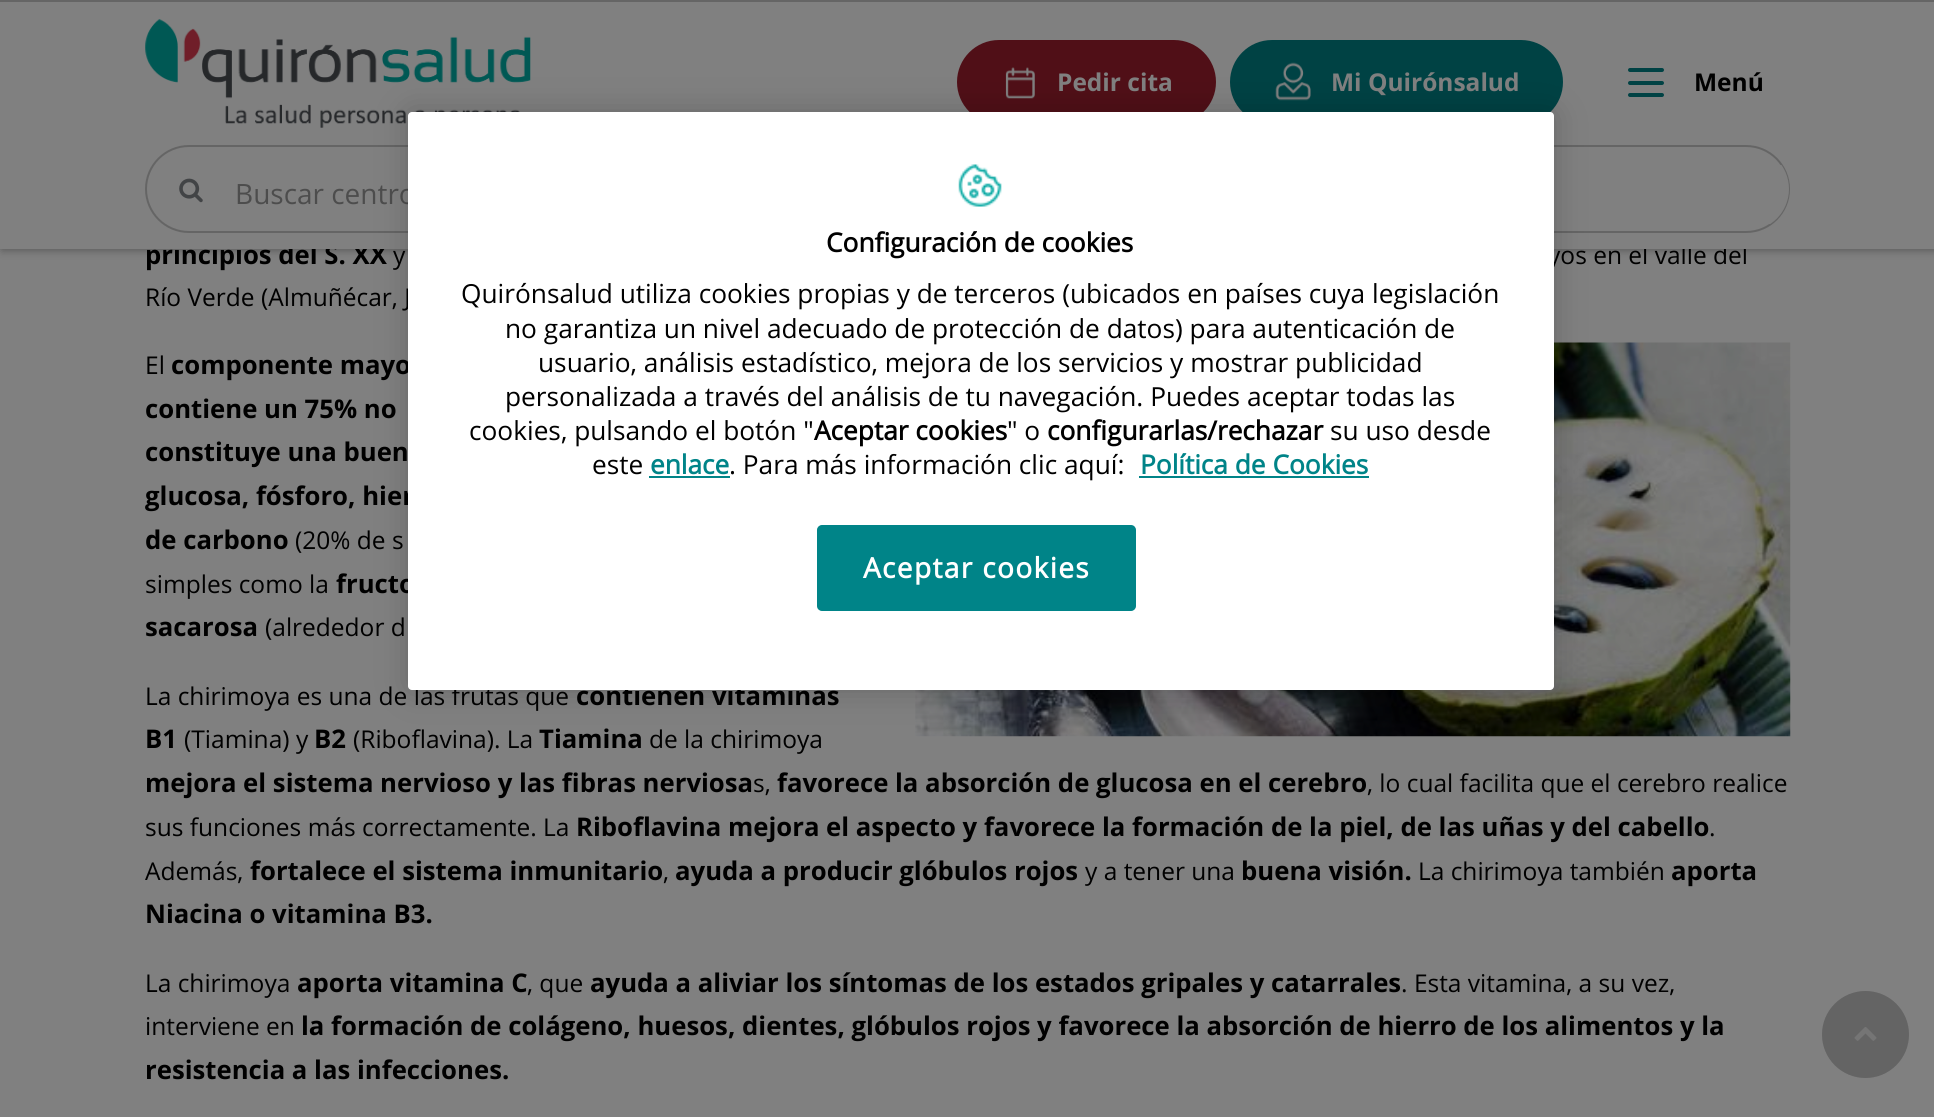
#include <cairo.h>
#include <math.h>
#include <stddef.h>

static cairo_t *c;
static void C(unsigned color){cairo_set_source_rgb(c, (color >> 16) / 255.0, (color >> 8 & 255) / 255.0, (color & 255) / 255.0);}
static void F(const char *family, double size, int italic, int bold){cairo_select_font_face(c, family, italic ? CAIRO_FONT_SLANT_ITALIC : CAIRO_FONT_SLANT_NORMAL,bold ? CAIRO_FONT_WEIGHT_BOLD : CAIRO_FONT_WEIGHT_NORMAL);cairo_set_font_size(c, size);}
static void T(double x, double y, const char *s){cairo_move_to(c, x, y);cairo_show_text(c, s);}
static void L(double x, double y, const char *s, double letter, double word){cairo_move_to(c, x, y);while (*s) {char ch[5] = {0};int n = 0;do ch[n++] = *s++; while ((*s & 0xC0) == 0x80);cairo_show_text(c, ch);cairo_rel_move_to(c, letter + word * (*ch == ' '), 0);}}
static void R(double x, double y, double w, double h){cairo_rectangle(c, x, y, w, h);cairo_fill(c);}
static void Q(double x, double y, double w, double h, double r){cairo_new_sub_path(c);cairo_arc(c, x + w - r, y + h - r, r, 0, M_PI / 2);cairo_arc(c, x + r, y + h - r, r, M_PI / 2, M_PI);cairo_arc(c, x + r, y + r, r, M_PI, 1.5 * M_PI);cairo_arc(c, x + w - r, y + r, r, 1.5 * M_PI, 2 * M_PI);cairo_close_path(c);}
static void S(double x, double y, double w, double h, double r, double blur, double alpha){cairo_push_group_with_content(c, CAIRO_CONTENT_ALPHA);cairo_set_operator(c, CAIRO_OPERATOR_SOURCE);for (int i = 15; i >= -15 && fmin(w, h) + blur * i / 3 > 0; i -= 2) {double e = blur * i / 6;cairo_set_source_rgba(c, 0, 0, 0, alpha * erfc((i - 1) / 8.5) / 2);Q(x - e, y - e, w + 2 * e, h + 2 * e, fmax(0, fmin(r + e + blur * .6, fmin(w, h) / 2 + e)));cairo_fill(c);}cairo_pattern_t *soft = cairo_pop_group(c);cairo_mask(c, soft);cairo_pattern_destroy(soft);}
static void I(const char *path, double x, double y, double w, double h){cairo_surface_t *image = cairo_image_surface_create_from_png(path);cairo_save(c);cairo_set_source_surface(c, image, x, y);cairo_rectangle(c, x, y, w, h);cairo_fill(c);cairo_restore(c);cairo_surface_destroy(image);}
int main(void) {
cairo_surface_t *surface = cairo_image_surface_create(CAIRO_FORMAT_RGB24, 1934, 1117);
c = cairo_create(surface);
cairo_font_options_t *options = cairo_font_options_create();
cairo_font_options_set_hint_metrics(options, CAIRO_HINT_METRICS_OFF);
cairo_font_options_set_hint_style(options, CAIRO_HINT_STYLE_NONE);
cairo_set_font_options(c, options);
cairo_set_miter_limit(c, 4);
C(0x808080);
cairo_paint(c);
C(0x000000);
S(2,2,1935,248,0,4.5,.33);
F("Open Sans",25.72,0,1);
C(0x000000);
T(145,264,"principios del S. XX");
F("Open Sans",24.5,0,0);
T(1548,264,"yos en el valle del");
C(0x808080);
R(0,2,1934,247);
C(0x656565);
R(0,0,1934,2);
I("1.png",145,19,386,109);
C(0x500f17);
Q(958,41,257,82,41);
cairo_fill_preserve(c);
cairo_stroke(c);
I("2.png",1005,67,30,32);
F("Open Sans",24.5,0,1);
C(0x808080);
T(1057,91,"Pedir cita");
C(0x004244);
Q(1231,41,331,82,41);
cairo_fill_preserve(c);
cairo_stroke(c);
I("3.png",1275,62,36,39);
C(0x808080);
T(1331,91,"Mi Quirónsalud");
C(0x004244);
Q(1628,68,36,4,2);
cairo_fill(c);
Q(1628,81,36,4,2);
cairo_fill(c);
Q(1628,93,36,4,2);
cairo_fill(c);
C(0x000000);
T(1694,91,"Menú");
Q(146,146,1643,86,43);
C(0x656565);
cairo_stroke(c);
I("4.png",179,178,24,25);
cairo_save(c);
Q(147,147,1642,84,42);
cairo_clip(c);
C(0x808080);
R(235,165,1554,59);
cairo_restore(c);
F("Open Sans",28,0,0);
C(0x4d4d4d);
T(235,204,"Buscar centro");
F("Open Sans",24.5,0,0);
C(0x000000);
T(393,264,"y");
T(145,306,"Río Verde (Almuñécar, J");
T(145,374,"El");
F("Open Sans",25.72,0,1);
T(171,374,"componente mayo");
T(145,418,"contiene un 75% no");
T(145,461,"constituye una buen");
T(145,505,"glucosa, fósforo, hier");
T(145,549,"de carbono");
F("Open Sans",24.5,0,0);
T(295,549,"(20% de s");
T(145,593,"simples como la");
F("Open Sans",25.72,0,1);
T(336,593,"fructo");
T(145,636,"sacarosa");
F("Open Sans",24.5,0,0);
T(265,636,"(alrededor d");
I("5.png",915,342,876,395);
T(145,705,"La chirimoya es una de las frutas que");
F("Open Sans",25.72,0,1);
T(576,705,"contienen vitaminas");
T(145,748,"B1");
F("Open Sans",24.5,0,0);
T(184,748,"(Tiamina) y");
F("Open Sans",25.72,0,1);
T(314,748,"B2");
F("Open Sans",24.5,0,0);
T(353,748,"(Riboflavina). La");
F("Open Sans",25.72,0,1);
T(539,748,"Tiamina");
F("Open Sans",24.5,0,0);
T(649,748,"de la chirimoya");
F("Open Sans",25.72,0,1);
T(145,792,"mejora el sistema nervioso y las fibras nerviosa");
F("Open Sans",24.5,0,0);
T(753,792,"s,");
F("Open Sans",25.72,0,1);
T(777,792,"favorece la absorción de glucosa en el cerebro");
F("Open Sans",24.5,0,0);
T(1367,792,", lo cual facilita que el cerebro realice");
T(145,836,"sus funciones más correctamente. La");
F("Open Sans",25.72,0,1);
T(576,836,"Riboflavina mejora el aspecto y favorece la formación de la piel, de las uñas y del cabello");
F("Open Sans",24.5,0,0);
T(1709,836,".");
T(145,880,"Además,");
F("Open Sans",25.72,0,1);
T(250,880,"fortalece el sistema inmunitario");
F("Open Sans",24.5,0,0);
T(663,880,",");
F("Open Sans",25.72,0,1);
T(675,880,"ayuda a producir glóbulos rojos");
F("Open Sans",24.5,0,0);
T(1085,880,"y a tener una");
F("Open Sans",25.72,0,1);
T(1241,880,"buena visión.");
F("Open Sans",24.5,0,0);
T(1418,880,"La chirimoya también");
F("Open Sans",25.72,0,1);
T(1671,880,"aporta");
T(145,923,"Niacina o vitamina B3.");
F("Open Sans",24.5,0,0);
T(145,992,"La chirimoya");
F("Open Sans",25.72,0,1);
T(297,992,"aporta vitamina C");
F("Open Sans",24.5,0,0);
T(527,992,", que");
F("Open Sans",25.72,0,1);
T(590,992,"ayuda a aliviar los síntomas de los estados gripales y catarrales");
F("Open Sans",24.5,0,0);
T(1401,992,". Esta vitamina, a su vez,");
T(145,1035,"interviene en");
F("Open Sans",25.72,0,1);
T(301,1035,"la formación de colágeno, huesos, dientes, glóbulos rojos y favorece la absorción de hierro de los alimentos y la");
T(145,1079,"resistencia a las infecciones.");
C(0x000000);
S(408,112,1146,578,4,16,.2);
C(0xffffff);
Q(408,112,1146,578,4);
cairo_fill(c);
I("6.png",958,164,44,43);
F("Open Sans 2",26.25,0,1);
C(0x000000);
T(826,252,"Configuración de cookies");
F("Open Sans",26.25,0,0);
T(461,303,"Quirónsalud utiliza cookies propias y de terceros (ubicados en países cuya legislación");
T(505,338,"no garantiza un nivel adecuado de protección de datos) para autenticación de");
T(538,372,"usuario, análisis estadístico, mejora de los servicios y mostrar publicidad");
T(505,406,"personalizada a través del análisis de tu navegación. Puedes aceptar todas las");
T(469,440,"cookies, pulsando el botón \"");
F("Open Sans 2",26.25,0,1);
T(814,440,"Aceptar cookies");
F("Open Sans",26.25,0,0);
T(1007,440,"\" o");
F("Open Sans 2",26.25,0,1);
T(1047,440,"configurarlas/rechazar");
F("Open Sans",26.25,0,0);
T(1330,440,"su uso desde");
T(592,474,"este");
F("Open Sans 2",26.25,0,1);
C(0x008488);
T(650,474,"enlace");
R(649,476,81,2);
F("Open Sans",26.25,0,0);
C(0x000000);
T(729,474,". Para más información clic aquí:");
F("Open Sans 2",26.25,0,1);
C(0x008488);
T(1140,474,"Política de Cookies");
R(1139,476,230,2);
Q(818,526,317,84,4);
cairo_fill_preserve(c);
cairo_stroke(c);
F("Open Sans 2",28,0,1);
C(0xffffff);
L(863,578,"Aceptar cookies",1.4,0);
C(0x707070);
cairo_new_path(c);
cairo_arc(c,1865.5,1034.5,43.5,0,2 * M_PI);
cairo_fill(c);
cairo_set_source_rgba(c,0.2,0.2,0.2,0.2);
cairo_arc(c,1865.5,1034.5,43.5,0,2 * M_PI);
cairo_fill(c);
I("7.png",1854,1027,23,14);
cairo_surface_write_to_png(surface, "o.png");
cairo_font_options_destroy(options);
cairo_destroy(c);
cairo_surface_destroy(surface);
return 0;
}
